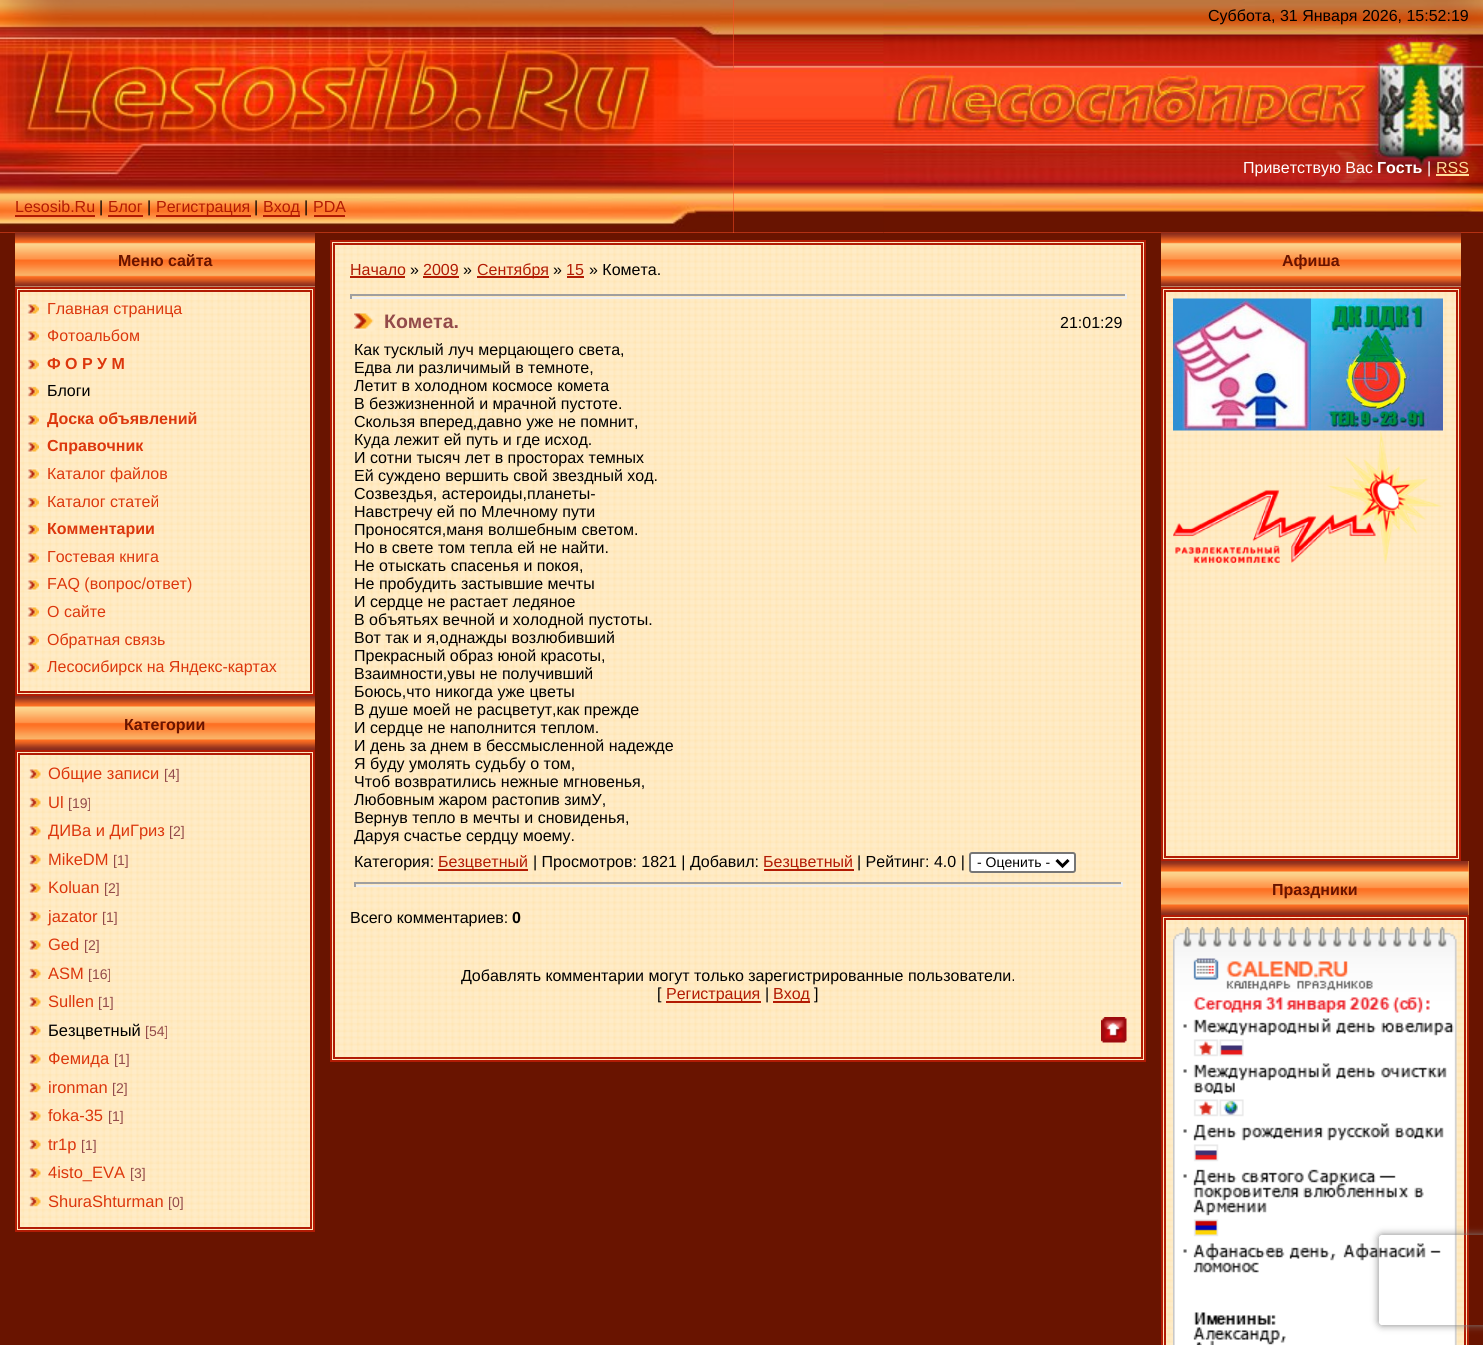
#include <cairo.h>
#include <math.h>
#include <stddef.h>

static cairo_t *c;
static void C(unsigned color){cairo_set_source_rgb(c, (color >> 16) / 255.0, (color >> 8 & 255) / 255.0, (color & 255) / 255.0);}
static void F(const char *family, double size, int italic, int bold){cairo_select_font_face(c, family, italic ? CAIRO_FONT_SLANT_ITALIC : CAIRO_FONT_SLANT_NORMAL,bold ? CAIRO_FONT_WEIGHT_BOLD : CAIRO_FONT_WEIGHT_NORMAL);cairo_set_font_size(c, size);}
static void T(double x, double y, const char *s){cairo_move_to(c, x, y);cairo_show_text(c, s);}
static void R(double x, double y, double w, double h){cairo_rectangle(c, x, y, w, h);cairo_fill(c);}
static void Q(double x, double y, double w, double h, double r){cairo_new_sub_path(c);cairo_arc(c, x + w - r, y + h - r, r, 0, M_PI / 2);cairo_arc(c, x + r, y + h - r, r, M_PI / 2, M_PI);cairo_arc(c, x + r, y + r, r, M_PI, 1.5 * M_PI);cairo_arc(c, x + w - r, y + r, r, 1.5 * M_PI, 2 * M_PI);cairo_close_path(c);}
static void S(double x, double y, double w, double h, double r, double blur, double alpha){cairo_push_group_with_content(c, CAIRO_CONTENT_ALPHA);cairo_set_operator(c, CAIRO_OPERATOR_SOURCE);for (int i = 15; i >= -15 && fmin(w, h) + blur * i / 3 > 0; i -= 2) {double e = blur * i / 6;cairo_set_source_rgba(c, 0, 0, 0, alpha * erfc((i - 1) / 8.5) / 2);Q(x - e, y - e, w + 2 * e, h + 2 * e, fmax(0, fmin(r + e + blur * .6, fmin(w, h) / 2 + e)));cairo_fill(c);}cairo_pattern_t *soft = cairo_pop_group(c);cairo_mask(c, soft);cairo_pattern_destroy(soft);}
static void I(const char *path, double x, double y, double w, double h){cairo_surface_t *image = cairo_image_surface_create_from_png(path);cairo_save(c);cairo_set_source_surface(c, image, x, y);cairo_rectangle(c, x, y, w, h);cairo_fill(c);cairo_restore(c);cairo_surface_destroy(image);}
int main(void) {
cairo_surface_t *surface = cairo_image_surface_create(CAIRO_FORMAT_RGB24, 1483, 1345);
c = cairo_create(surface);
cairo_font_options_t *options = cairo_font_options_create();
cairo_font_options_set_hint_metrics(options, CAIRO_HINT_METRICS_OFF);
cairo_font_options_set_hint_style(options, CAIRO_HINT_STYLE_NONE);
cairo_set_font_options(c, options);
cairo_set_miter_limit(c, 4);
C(0x691400);
cairo_paint(c);
C(0xff4f27);
R(734,232,749,1);
I("1.png",734,0,150,233);
I("2.png",883,0,600,233);
F("Liberation Sans",16,0,0);
C(0x000000);
T(1208,21,"Суббота, 31 Января 2026, 15:52:19");
C(0xffffff);
T(1243,173,"Приветствую Вас");
F("Liberation Sans",16,0,1);
T(1377,173,"Гость");
F("Liberation Sans",16,0,0);
T(1427,173,"|");
C(0xffdc99);
T(1436,173,"RSS");
R(1436,174,33,2);
C(0xff4f27);
R(0,0,734,233);
I("3.png",0,0,734,233);
C(0xb21b04);
T(15,212,"Lesosib.Ru");
R(15,215,80,2);
C(0x000000);
T(99,212,"|");
C(0xb21b04);
T(108,212,"Блог");
R(108,215,35,2);
C(0x000000);
T(147,212,"|");
C(0xb21b04);
R(156,215,95,2);
T(156,212,"Регистрация");
C(0x000000);
T(254,212,"|");
C(0xb21b04);
R(263,215,37,2);
T(263,212,"Вход");
C(0x000000);
T(304,212,"|");
C(0xb21b04);
T(313,212,"PDA");
R(314,215,31,2);
I("4.png",15,232,300,55);
F("Liberation Sans",16,0,1);
C(0x691400);
T(118,266,"Меню сайта");
I("5.png",15,286,300,408);
cairo_rectangle(c,16,288,298,407);
C(0xb21b04);
cairo_stroke(c);
cairo_rectangle(c,19,291,292,401);
cairo_stroke(c);
I("6.png",27,303,12,12);
F("Liberation Sans",16,0,0);
C(0xdc370d);
T(47,314,"Главная страница");
I("6.png",27,330,12,12);
T(47,341,"Фотоальбом");
I("7.png",27,358,12,13);
F("Liberation Sans",16,0,1);
T(47,369,"Ф О Р У М");
I("7.png",27,385,12,13);
F("Liberation Sans",16,0,0);
C(0x000000);
T(47,396,"Блоги");
I("6.png",27,414,12,12);
F("Liberation Sans",16,0,1);
C(0xdc370d);
T(47,424,"Доска объявлений");
I("6.png",27,441,12,12);
T(47,451,"Справочник");
I("6.png",27,468,12,12);
F("Liberation Sans",16,0,0);
T(47,479,"Каталог файлов");
I("8.png",27,496,12,13);
T(47,507,"Каталог статей");
I("8.png",27,523,12,13);
F("Liberation Sans",16,0,1);
T(47,534,"Комментарии");
I("6.png",27,552,12,12);
F("Liberation Sans",16,0,0);
T(47,562,"Гостевая книга");
I("6.png",27,579,12,12);
T(47,589,"FAQ (вопрос/ответ)");
I("6.png",27,606,12,12);
T(47,617,"О сайте");
I("9.png",27,634,12,13);
T(47,645,"Обратная связь");
I("9.png",27,661,12,13);
T(47,672,"Лесосибирск на Яндекс-картах");
I("10.png",15,696,300,54);
F("Liberation Sans",16,0,1);
C(0x691400);
T(124,730,"Категории");
I("11.png",17,752,296,478);
cairo_rectangle(c,16,751,298,480);
C(0xb21b04);
cairo_stroke(c);
cairo_rectangle(c,19,754,292,474);
cairo_stroke(c);
I("12.png",28,768,13,12);
F("Liberation Sans",16.5,0,0);
C(0xdc370d);
T(48,779,"Общие записи");
F("Liberation Sans",14,0,0);
C(0x934a4a);
T(164,779,"[4]");
I("13.png",28,796,13,13);
F("Liberation Sans",16.5,0,0);
C(0xdc370d);
T(48,808,"Ul");
F("Liberation Sans",14,0,0);
C(0x934a4a);
T(68,808,"[19]");
I("14.png",28,825,13,12);
F("Liberation Sans",16.5,0,0);
C(0xdc370d);
T(48,836,"ДИВа и ДиГриз");
F("Liberation Sans",14,0,0);
C(0x934a4a);
T(169,836,"[2]");
I("15.png",28,853,13,13);
F("Liberation Sans",16.5,0,0);
C(0xdc370d);
T(48,865,"MikeDM");
F("Liberation Sans",14,0,0);
C(0x934a4a);
T(113,865,"[1]");
I("16.png",28,882,13,12);
F("Liberation Sans",16.5,0,0);
C(0xdc370d);
T(48,893,"Koluan");
F("Liberation Sans",14,0,0);
C(0x934a4a);
T(104,893,"[2]");
I("17.png",28,910,13,13);
F("Liberation Sans",16.5,0,0);
C(0xdc370d);
T(48,922,"jazator");
F("Liberation Sans",14,0,0);
C(0x934a4a);
T(102,922,"[1]");
I("18.png",28,939,13,12);
F("Liberation Sans",16.5,0,0);
C(0xdc370d);
T(48,950,"Ged");
F("Liberation Sans",14,0,0);
C(0x934a4a);
T(84,950,"[2]");
I("19.png",28,967,13,13);
F("Liberation Sans",16.5,0,0);
C(0xdc370d);
T(48,979,"ASM");
F("Liberation Sans",14,0,0);
C(0x934a4a);
T(88,979,"[16]");
I("20.png",28,996,13,12);
F("Liberation Sans",16.5,0,0);
C(0xdc370d);
T(48,1007,"Sullen");
F("Liberation Sans",14,0,0);
C(0x934a4a);
T(98,1007,"[1]");
I("21.png",28,1024,13,13);
F("Liberation Sans",16.5,0,0);
C(0x000000);
T(48,1036,"Безцветный");
F("Liberation Sans",14,0,0);
C(0x934a4a);
T(145,1036,"[54]");
I("22.png",28,1053,13,12);
F("Liberation Sans",16.5,0,0);
C(0xdc370d);
T(48,1064,"Фемида");
F("Liberation Sans",14,0,0);
C(0x934a4a);
T(114,1064,"[1]");
I("23.png",28,1081,13,13);
F("Liberation Sans",16.5,0,0);
C(0xdc370d);
T(48,1093,"ironman");
F("Liberation Sans",14,0,0);
C(0x934a4a);
T(112,1093,"[2]");
I("24.png",28,1110,13,12);
F("Liberation Sans",16.5,0,0);
C(0xdc370d);
T(48,1121,"foka-35");
F("Liberation Sans",14,0,0);
C(0x934a4a);
T(108,1121,"[1]");
I("25.png",28,1138,13,13);
F("Liberation Sans",16.5,0,0);
C(0xdc370d);
T(48,1150,"tr1p");
F("Liberation Sans",14,0,0);
C(0x934a4a);
T(81,1150,"[1]");
I("26.png",28,1167,13,12);
F("Liberation Sans",16.5,0,0);
C(0xdc370d);
T(48,1178,"4isto_EVA");
F("Liberation Sans",14,0,0);
C(0x934a4a);
T(130,1178,"[3]");
I("27.png",28,1195,13,13);
F("Liberation Sans",16.5,0,0);
C(0xdc370d);
T(48,1207,"ShuraShturman");
F("Liberation Sans",14,0,0);
C(0x934a4a);
T(168,1207,"[0]");
I("28.png",332,242,812,818);
cairo_rectangle(c,331,241,814,820);
C(0xb21b04);
cairo_stroke(c);
cairo_rectangle(c,334,244,808,814);
cairo_stroke(c);
F("Liberation Sans",16,0,0);
T(350,275,"Начало");
R(350,276,55,2);
C(0x000000);
T(410,275,"»");
C(0xb21b04);
T(423,275,"2009");
R(423,276,36,2);
C(0x000000);
T(463,275,"»");
C(0xb21b04);
R(477,276,72,2);
T(477,275,"Сентября");
C(0x000000);
T(553,275,"»");
C(0xb21b04);
T(566,275,"15");
R(567,276,17,2);
C(0x000000);
T(589,275,"» Комета.");
C(0x9f9f9f);
R(350,294,777,2);
C(0xeeeeee);
R(1125,294,2,5);
R(350,297,777,2);
C(0x9f9f9f);
R(350,294,2,5);
I("29.png",354,310,21,22);
F("Liberation Sans",19.5,0,1);
C(0x934a4a);
T(384,328,"Комета.");
F("Liberation Sans",16,0,0);
C(0x000000);
T(1060,328,"21:01:29");
T(354,355,"Как тусклый луч мерцающего света,");
T(354,373,"Едва ли различимый в темноте,");
T(354,391,"Летит в холодном космосе комета");
T(354,409,"В безжизненной и мрачной пустоте.");
T(354,427,"Скользя вперед,давно уже не помнит,");
T(354,445,"Куда лежит ей путь и где исход.");
T(354,463,"И сотни тысяч лет в просторах темных");
T(354,481,"Ей суждено вершить свой звездный ход.");
T(354,499,"Созвездья, астероиды,планеты-");
T(354,517,"Навстречу ей по Млечному пути");
T(354,535,"Проносятся,маня волшебным светом.");
T(354,553,"Но в свете том тепла ей не найти.");
T(354,571,"Не отыскать спасенья и покоя,");
T(354,589,"Не пробудить застывшие мечты");
T(354,607,"И сердце не растает ледяное");
T(354,625,"В объятьях вечной и холодной пустоты.");
T(354,643,"Вот так и я,однажды возлюбивший");
T(354,661,"Прекрасный образ юной красоты,");
T(354,679,"Взаимности,увы не получивший");
T(354,697,"Боюсь,что никогда уже цветы");
T(354,715,"В душе моей не расцветут,как прежде");
T(354,733,"И сердце не наполнится теплом.");
T(354,751,"И день за днем в бессмысленной надежде");
T(354,769,"Я буду умолять судьбу о том,");
T(354,787,"Чтоб возвратились нежные мгновенья,");
T(354,805,"Любовным жаром растопив зимУ,");
T(354,823,"Вернув тепло в мечты и сновиденья,");
T(354,841,"Даруя счастье сердцу моему.");
T(354,867,"Категория:");
C(0xb21b04);
R(438,869,90,2);
T(438,867,"Безцветный");
C(0x000000);
T(533,867,"| Просмотров: 1821 | Добавил:");
C(0xb21b04);
R(764,869,90,2);
T(763,867,"Безцветный");
C(0x000000);
T(857,867,"| Рейтинг: 4.0 |");
C(0xffffff);
Q(970,853,105,19,2);
cairo_fill_preserve(c);
C(0x767676);
cairo_stroke(c);
cairo_new_path(c);
cairo_move_to(c,1056.5,860);
cairo_line_to(c,1062.5,866);
cairo_line_to(c,1068.5,860);
C(0x000000);
cairo_set_line_width(c,3);
cairo_stroke(c);
F("Liberation Sans",14,0,0);
T(977,867,"- Оценить -");
C(0x9f9f9f);
R(354,882,768,2);
C(0xeeeeee);
R(1121,882,2,5);
R(354,885,768,2);
C(0x9f9f9f);
R(354,882,2,5);
F("Liberation Sans",16,0,0);
C(0x000000);
T(350,923,"Всего комментариев:");
F("Liberation Sans",16,0,1);
T(512,923,"0");
F("Liberation Sans",16,0,0);
T(461,981,"Добавлять комментарии могут только зарегистрированные пользователи.");
T(657,999,"[");
C(0xb21b04);
R(666,1001,95,2);
T(666,999,"Регистрация");
C(0x000000);
T(765,999,"|");
C(0xb21b04);
R(773,1001,37,2);
T(773,999,"Вход");
C(0x000000);
T(814,999,"]");
I("30.png",1101,1017,26,26);
I("4.png",1161,232,300,55);
F("Liberation Sans",16,0,1);
C(0x691400);
T(1282,266,"Афиша");
I("31.png",1161,286,300,573);
cairo_rectangle(c,1162,288,298,572);
C(0xb21b04);
cairo_set_line_width(c,2);
cairo_stroke(c);
cairo_rectangle(c,1165,291,292,566);
cairo_stroke(c);
I("32.png",1173,298,138,133);
I("33.png",1311,298,132,133);
I("34.png",1173,430,270,134);
C(0xffac4c);
R(1468,861,1,54);
I("35.png",1161,861,308,54);
C(0x691400);
T(1272,895,"Праздники");
I("36.png",1163,917,304,428);
cairo_rectangle(c,1162,916,306,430);
C(0xb21b04);
cairo_stroke(c);
cairo_rectangle(c,1165,919,300,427);
cairo_stroke(c);
I("37.png",1173,927,284,418);
cairo_save(c);
cairo_set_fill_rule(c,CAIRO_FILL_RULE_EVEN_ODD);
cairo_new_path(c);
cairo_move_to(c,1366,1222);
cairo_line_to(c,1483,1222);
cairo_line_to(c,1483,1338);
cairo_line_to(c,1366,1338);
cairo_close_path(c);
cairo_move_to(c,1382,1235);
cairo_line_to(c,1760,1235);
cairo_curve_to(c,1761.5,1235,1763,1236.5,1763,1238);
cairo_line_to(c,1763,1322);
cairo_curve_to(c,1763,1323.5,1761.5,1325,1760,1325);
cairo_line_to(c,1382,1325);
cairo_curve_to(c,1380.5,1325,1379,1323.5,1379,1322);
cairo_line_to(c,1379,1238);
cairo_curve_to(c,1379,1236.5,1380.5,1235,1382,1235);
cairo_close_path(c);
cairo_clip(c);
C(0x808080);
S(1379,1235,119,90,3,4,1);
cairo_restore(c);
cairo_surface_write_to_png(surface, "o.png");
cairo_font_options_destroy(options);
cairo_destroy(c);
cairo_surface_destroy(surface);
return 0;
}
